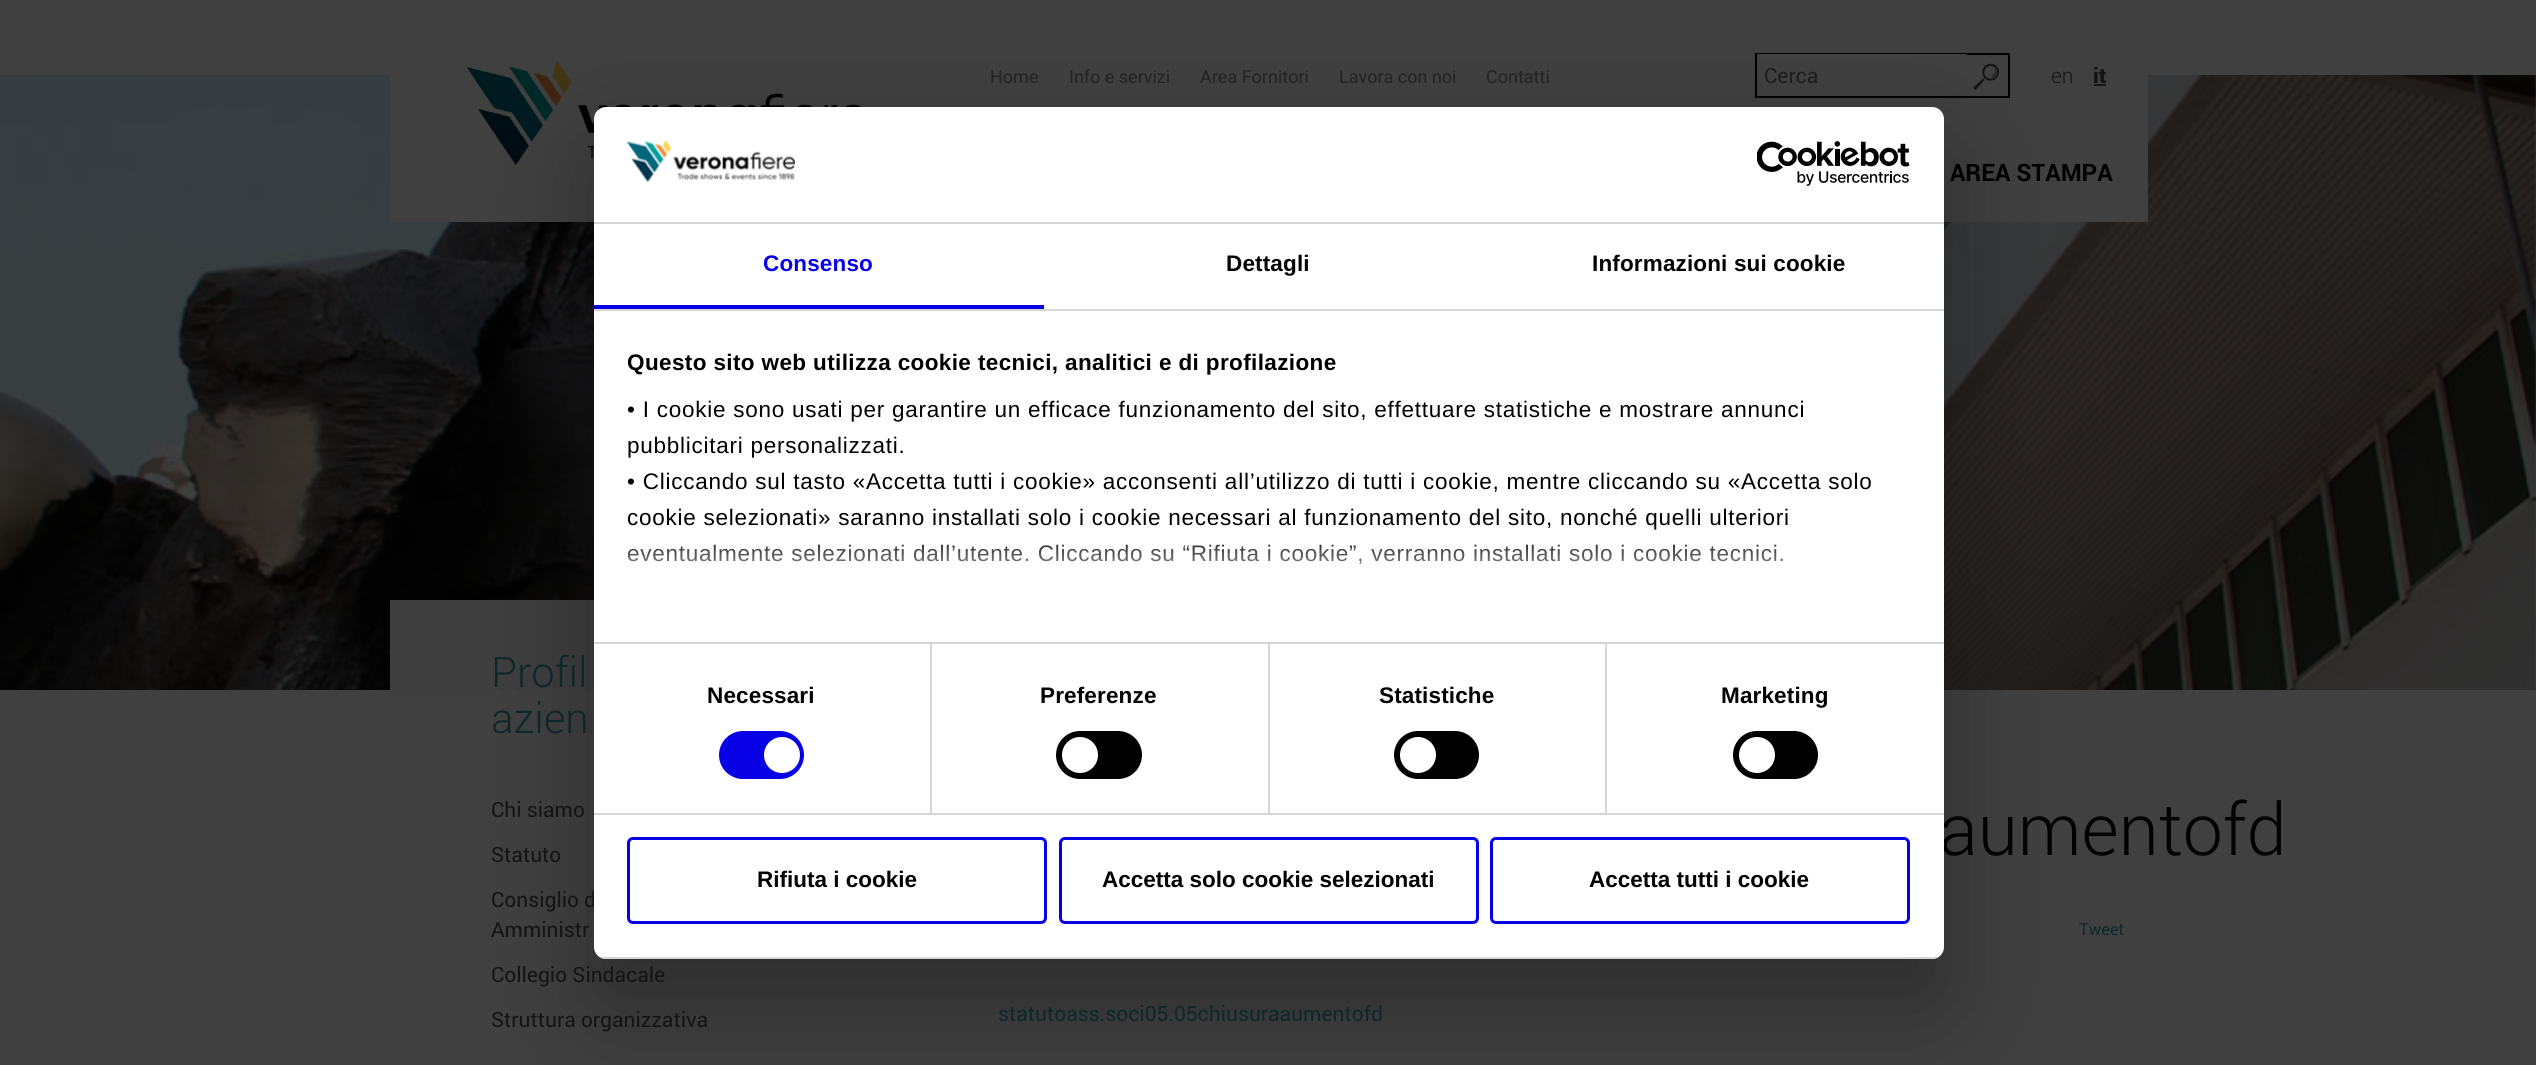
#include <cairo.h>
#include <math.h>
#include <stddef.h>

static cairo_t *c;
static void C(unsigned color){cairo_set_source_rgb(c, (color >> 16) / 255.0, (color >> 8 & 255) / 255.0, (color & 255) / 255.0);}
static void F(const char *family, double size, int italic, int bold){cairo_select_font_face(c, family, italic ? CAIRO_FONT_SLANT_ITALIC : CAIRO_FONT_SLANT_NORMAL,bold ? CAIRO_FONT_WEIGHT_BOLD : CAIRO_FONT_WEIGHT_NORMAL);cairo_set_font_size(c, size);}
static void T(double x, double y, const char *s){cairo_move_to(c, x, y);cairo_show_text(c, s);}
static void L(double x, double y, const char *s, double letter, double word){cairo_move_to(c, x, y);while (*s) {char ch[5] = {0};int n = 0;do ch[n++] = *s++; while ((*s & 0xC0) == 0x80);cairo_show_text(c, ch);cairo_rel_move_to(c, letter + word * (*ch == ' '), 0);}}
static void R(double x, double y, double w, double h){cairo_rectangle(c, x, y, w, h);cairo_fill(c);}
static void Q(double x, double y, double w, double h, double r){cairo_new_sub_path(c);cairo_arc(c, x + w - r, y + h - r, r, 0, M_PI / 2);cairo_arc(c, x + r, y + h - r, r, M_PI / 2, M_PI);cairo_arc(c, x + r, y + r, r, M_PI, 1.5 * M_PI);cairo_arc(c, x + w - r, y + r, r, 1.5 * M_PI, 2 * M_PI);cairo_close_path(c);}
static void S(double x, double y, double w, double h, double r, double blur, double alpha){cairo_push_group_with_content(c, CAIRO_CONTENT_ALPHA);cairo_set_operator(c, CAIRO_OPERATOR_SOURCE);for (int i = 15; i >= -15 && fmin(w, h) + blur * i / 3 > 0; i -= 2) {double e = blur * i / 6;cairo_set_source_rgba(c, 0, 0, 0, alpha * erfc((i - 1) / 8.5) / 2);Q(x - e, y - e, w + 2 * e, h + 2 * e, fmax(0, fmin(r + e + blur * .6, fmin(w, h) / 2 + e)));cairo_fill(c);}cairo_pattern_t *soft = cairo_pop_group(c);cairo_mask(c, soft);cairo_pattern_destroy(soft);}
static void I(const char *path, double x, double y, double w, double h){cairo_surface_t *image = cairo_image_surface_create_from_png(path);cairo_save(c);cairo_set_source_surface(c, image, x, y);cairo_rectangle(c, x, y, w, h);cairo_fill(c);cairo_restore(c);cairo_surface_destroy(image);}
int main(void) {
cairo_surface_t *surface = cairo_image_surface_create(CAIRO_FORMAT_RGB24, 2536, 1065);
c = cairo_create(surface);
cairo_font_options_t *options = cairo_font_options_create();
cairo_font_options_set_hint_metrics(options, CAIRO_HINT_METRICS_OFF);
cairo_font_options_set_hint_style(options, CAIRO_HINT_STYLE_NONE);
cairo_set_font_options(c, options);
cairo_set_miter_limit(c, 4);
cairo_pattern_t *gradient;
C(0x404040);
cairo_paint(c);
I("5.png",0,75,2536,615);
C(0x404040);
R(390,75,1758,147);
I("1.png",467,60,401,105);
F("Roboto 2",18,0,0);
C(0x232323);
T(990,83,"Home");
T(1069,83,"Info e servizi");
T(1200,83,"Area Fornitori");
T(1339,83,"Lavora con noi");
T(1486,83,"Contatti");
cairo_rectangle(c,1756,54,253,43);
C(0x000000);
cairo_stroke(c);
C(0x404040);
R(1757,54,210,1);
F("roboto",21,0,0);
C(0x1d1d1d);
T(1764,83,"Cerca");
I("2.png",1973,63,26,27);
F("Roboto Light",21,0,0);
C(0x141414);
T(2051,83,"en");
F("Roboto Black",21,0,0);
T(2093,83,"it");
R(2094,84,12,2);
F("roboto",24,0,1);
C(0x000000);
T(1950,181,"AREA STAMPA");
C(0x3e3e3e);
R(390,600,417,90);
C(0x000000);
S(594,155,1350,852,12,51,.3);
F("roboto",21,0,0);
C(0x141414);
T(491,907,"Consiglio d");
F("Roboto Light",72,0,0);
C(0x000000);
T(1939,855,"aumentofd");
C(0xffffff);
Q(594,107,1350,852,12);
cairo_fill(c);
C(0xd6d6d6);
R(594,222,1350,2);
I("3.png",627,140,168,42);
I("4.png",1757,141,153,45);
R(594,309,1350,2);
C(0x0901e5);
R(594,305,450,4);
F("Liberation Sans",22.5,0,1);
L(763,271,"Consenso",.15,0);
C(0x000000);
L(1226,271,"Dettagli",.15,0);
L(1592,271,"Informazioni sui cookie",.15,0);
C(0xd6d6d6);
R(594,642,1350,2);
C(0x000000);
L(627,370,"Questo sito web utilizza cookie tecnici, analitici e di profilazione",.38,0);
F("Liberation Sans",22.5,0,0);
L(627,417,"• I cookie sono usati per garantire un efficace funzionamento del sito, effettuare statistiche e mostrare annunci",.75,0);
L(627,453,"pubblicitari personalizzati.",.75,0);
L(627,489,"• Cliccando sul tasto «Accetta tutti i cookie» acconsenti all’utilizzo di tutti i cookie, mentre cliccando su «Accetta solo",.75,0);
L(627,525,"cookie selezionati» saranno installati solo i cookie necessari al funzionamento del sito, nonché quelli ulteriori",.75,0);
L(627,561,"eventualmente selezionati dall’utente. Cliccando su “Rifiuta i cookie”, verranno installati solo i cookie tecnici.",.75,0);
gradient = cairo_pattern_create_linear(1253,642,1253,530);
cairo_pattern_add_color_stop_rgba(gradient,0,1,1,1,1);
cairo_pattern_add_color_stop_rgba(gradient,.5,1,1,1,.8);
cairo_pattern_add_color_stop_rgba(gradient,1,1,1,1,0);
cairo_set_source(c,gradient);
cairo_pattern_destroy(gradient);
R(628,544,1155,20);
C(0xd6d6d6);
R(594,813,1350,2);
C(0xe5e5e5);
R(594,642,1,2);
C(0xd6d6d6);
R(930,644,2,169);
F("Liberation Sans",22.5,0,1);
C(0x000000);
L(707,703,"Necessari",.15,0);
C(0x0901e5);
Q(719,731,85,48,24);
cairo_fill(c);
C(0xffffff);
cairo_arc(c,782,755,18,0,2 * M_PI);
cairo_fill(c);
C(0xd6d6d6);
R(1268,644,2,169);
C(0x000000);
L(1040,703,"Preferenze",.15,0);
Q(1056,731,86,48,24);
cairo_fill(c);
C(0xffffff);
cairo_arc(c,1080,755,18,0,2 * M_PI);
cairo_fill(c);
C(0xd6d6d6);
R(1605,644,2,169);
C(0x000000);
L(1379,703,"Statistiche",.15,0);
Q(1394,731,85,48,24);
cairo_fill(c);
C(0xffffff);
cairo_arc(c,1418,755,18,0,2 * M_PI);
cairo_fill(c);
C(0x000000);
L(1721,703,"Marketing",.15,0);
Q(1733,731,85,48,24);
cairo_fill(c);
C(0xffffff);
cairo_arc(c,1757,755,18,0,2 * M_PI);
cairo_fill(c);
cairo_save(c);
Q(594,107,1350,852,12);
cairo_clip(c);
C(0xd6d6d6);
R(594,957,1350,2);
cairo_restore(c);
Q(628.5,838.5,417,84,4.5);
C(0x0901e5);
cairo_set_line_width(c,3);
cairo_stroke(c);
C(0x000000);
T(757,887,"Rifiuta i cookie");
Q(1060.5,838.5,417,84,4.5);
C(0x0901e5);
cairo_stroke(c);
C(0x000000);
T(1102,887,"Accetta solo cookie selezionati");
Q(1491.5,838.5,417,84,4.5);
C(0x0901e5);
cairo_stroke(c);
C(0x000000);
T(1589,887,"Accetta tutti i cookie");
F("Roboto Light",42,0,0);
C(0x0d2828);
T(491,687,"Profil");
T(491,733,"azien");
F("roboto",21,0,0);
C(0x141414);
T(491,817,"Chi siamo");
T(491,862,"Statuto");
T(491,937,"Amministr");
T(491,982,"Collegio Sindacale");
T(491,1027,"Struttura organizzativa");
F("roboto",16.5,0,0);
C(0x0d2828);
T(2079,935,"Tweet");
F("roboto",21,0,0);
T(998,1021,"statutoass.soci05.05chiusuraaumentofd");
cairo_surface_write_to_png(surface, "o.png");
cairo_font_options_destroy(options);
cairo_destroy(c);
cairo_surface_destroy(surface);
return 0;
}
